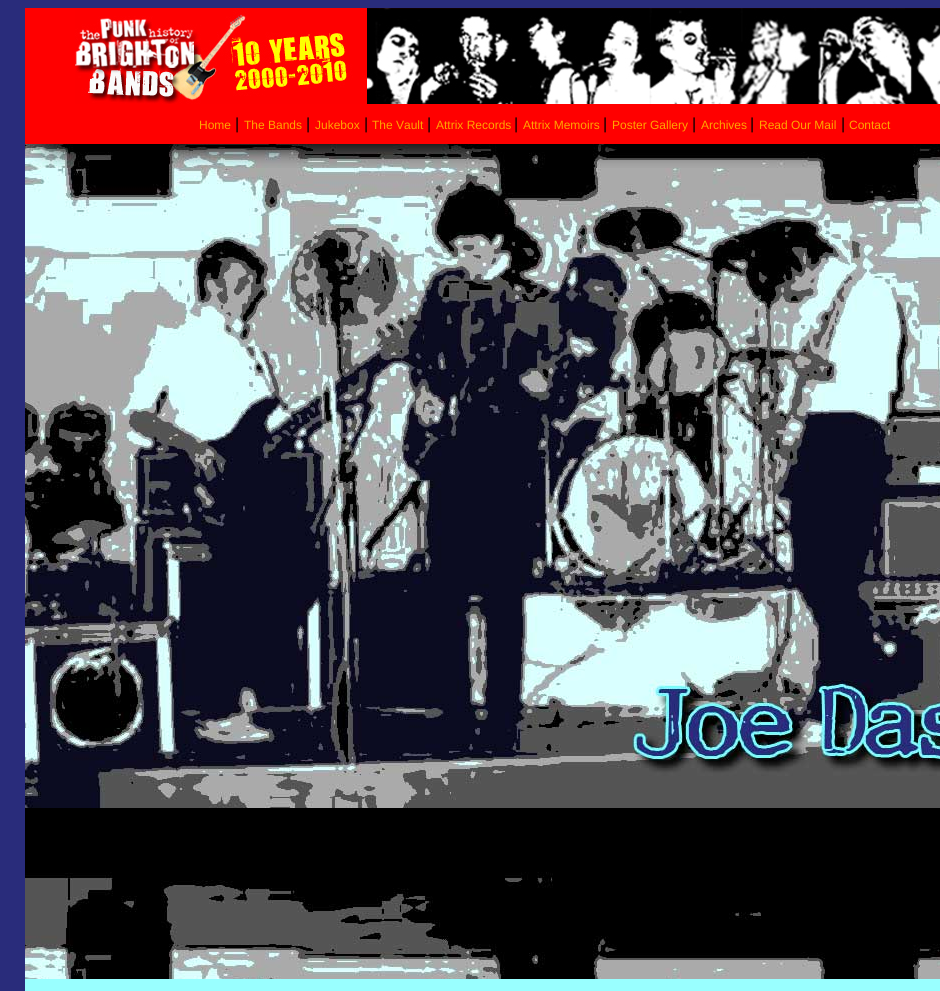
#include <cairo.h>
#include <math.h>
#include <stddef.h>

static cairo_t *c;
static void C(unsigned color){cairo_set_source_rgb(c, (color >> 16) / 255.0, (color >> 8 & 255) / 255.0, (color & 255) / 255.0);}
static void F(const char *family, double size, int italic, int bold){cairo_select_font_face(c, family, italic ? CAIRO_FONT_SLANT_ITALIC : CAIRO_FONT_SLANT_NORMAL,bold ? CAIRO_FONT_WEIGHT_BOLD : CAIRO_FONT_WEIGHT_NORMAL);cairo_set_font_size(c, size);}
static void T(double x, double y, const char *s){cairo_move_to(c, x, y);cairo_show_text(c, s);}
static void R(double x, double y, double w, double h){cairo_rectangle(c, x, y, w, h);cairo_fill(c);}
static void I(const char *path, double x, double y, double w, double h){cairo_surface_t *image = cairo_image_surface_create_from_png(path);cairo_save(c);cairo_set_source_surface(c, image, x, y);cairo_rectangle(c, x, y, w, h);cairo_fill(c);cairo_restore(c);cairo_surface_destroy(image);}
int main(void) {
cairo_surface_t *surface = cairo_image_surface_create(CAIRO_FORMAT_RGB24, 940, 991);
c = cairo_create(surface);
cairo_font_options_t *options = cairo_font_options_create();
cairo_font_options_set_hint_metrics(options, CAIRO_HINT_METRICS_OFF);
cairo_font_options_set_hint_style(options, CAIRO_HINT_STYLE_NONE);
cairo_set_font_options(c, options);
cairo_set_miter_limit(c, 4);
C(0x292c7b);
cairo_paint(c);
I("1.png",25,144,915,835);
C(0xff0000);
R(25,8,50,136);
I("2.png",75,8,865,96);
R(75,104,865,40);
F("Liberation Sans",12,0,0);
C(0xffa500);
T(199,129,"Home");
F("Liberation Sans",16,0,0);
C(0x000000);
T(235,129,"|");
F("Liberation Sans",12,0,0);
C(0xffa500);
T(244,129,"The Bands");
F("Liberation Sans",16,0,0);
C(0x000000);
T(306,129,"|");
F("Liberation Sans",12,0,0);
C(0xffa500);
T(315,129,"Jukebox");
F("Liberation Sans",16,0,0);
C(0x000000);
T(364,129,"|");
F("Liberation Sans",12,0,0);
C(0xffa500);
T(372,129,"The Vault");
F("Liberation Sans",16,0,0);
C(0x000000);
T(427,129,"|");
F("Liberation Sans",12,0,0);
C(0xffa500);
T(436,129,"Attrix Records");
F("Liberation Sans",16,0,0);
C(0x000000);
T(514,129,"|");
F("Liberation Sans",12,0,0);
C(0xffa500);
T(523,129,"Attrix Memoirs");
F("Liberation Sans",16,0,0);
C(0x000000);
T(603,129,"|");
F("Liberation Sans",12,0,0);
C(0xffa500);
T(612,129,"Poster Gallery");
F("Liberation Sans",16,0,0);
C(0x000000);
T(692,129,"|");
F("Liberation Sans",12,0,0);
C(0xffa500);
T(701,129,"Archives");
F("Liberation Sans",16,0,0);
C(0x000000);
T(750,129,"|");
F("Liberation Sans",12,0,0);
C(0xffa500);
T(759,129,"Read Our Mail");
F("Liberation Sans",16,0,0);
C(0x000000);
T(841,129,"|");
F("Liberation Sans",12,0,0);
C(0xffa500);
T(849,129,"Contact");
I("3.png",28,144,912,24);
C(0x99ffff);
R(25,979,915,12);
cairo_surface_write_to_png(surface, "o.png");
cairo_font_options_destroy(options);
cairo_destroy(c);
cairo_surface_destroy(surface);
return 0;
}
